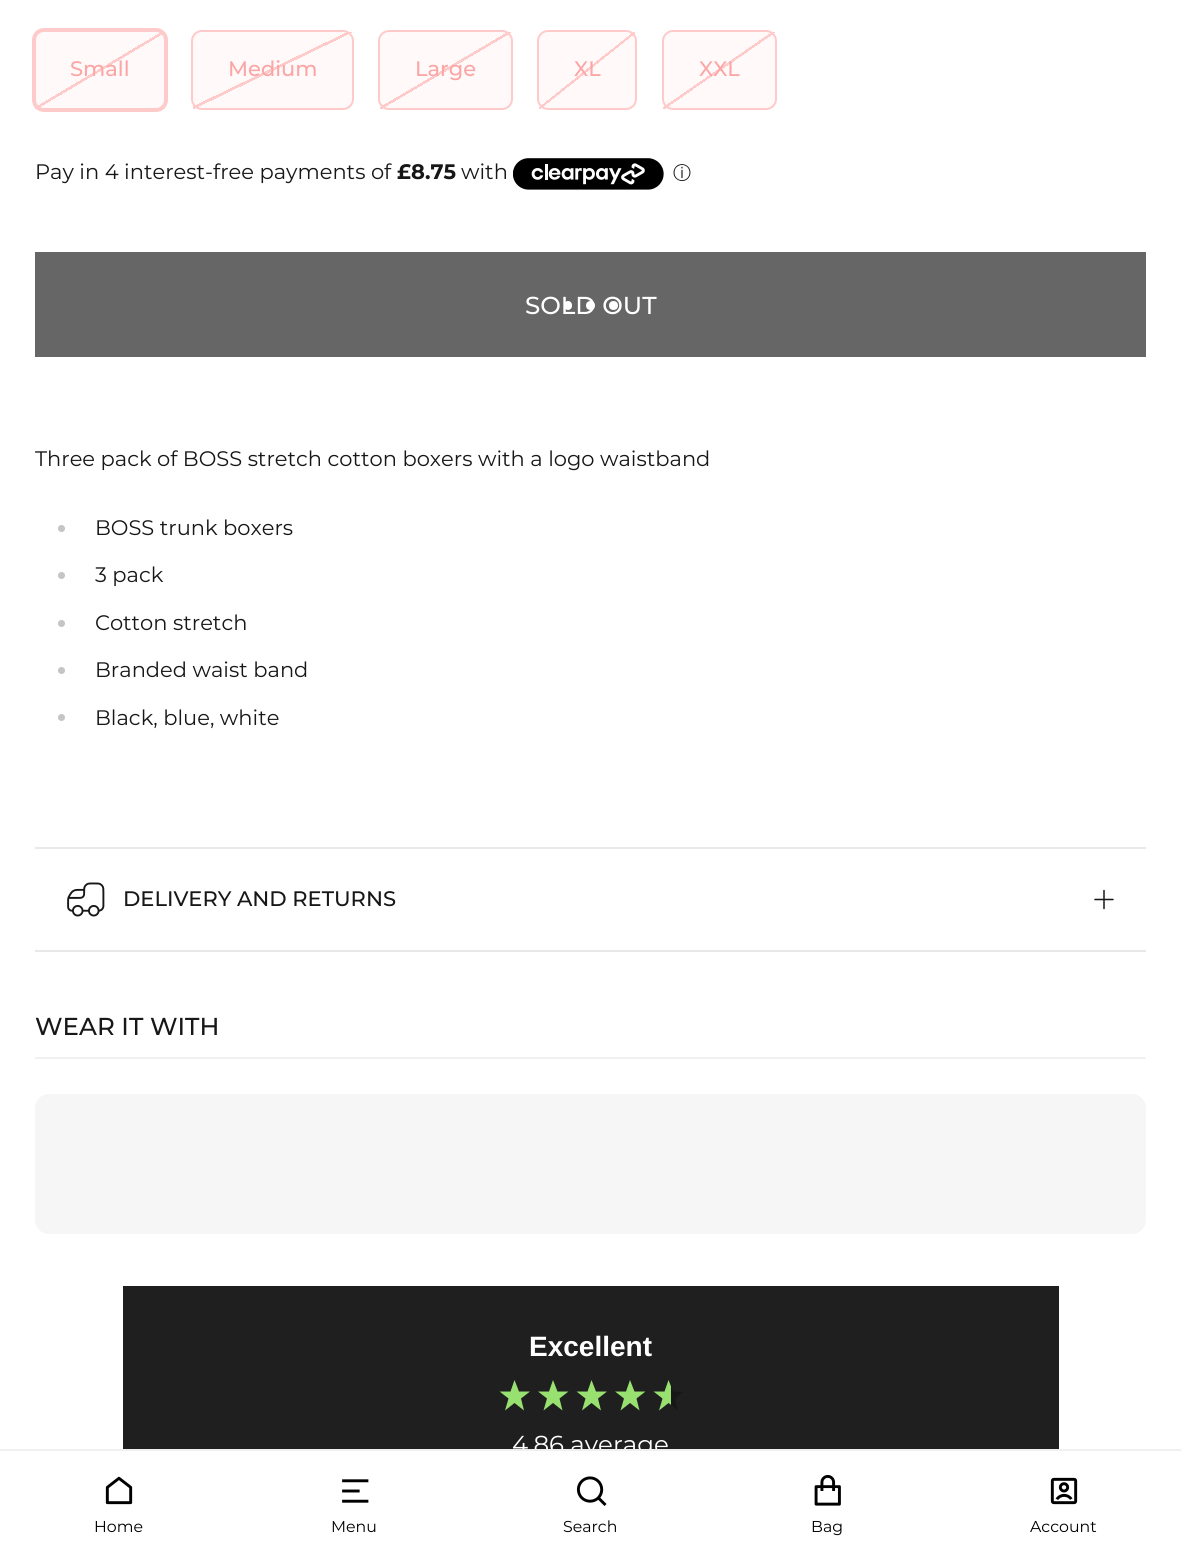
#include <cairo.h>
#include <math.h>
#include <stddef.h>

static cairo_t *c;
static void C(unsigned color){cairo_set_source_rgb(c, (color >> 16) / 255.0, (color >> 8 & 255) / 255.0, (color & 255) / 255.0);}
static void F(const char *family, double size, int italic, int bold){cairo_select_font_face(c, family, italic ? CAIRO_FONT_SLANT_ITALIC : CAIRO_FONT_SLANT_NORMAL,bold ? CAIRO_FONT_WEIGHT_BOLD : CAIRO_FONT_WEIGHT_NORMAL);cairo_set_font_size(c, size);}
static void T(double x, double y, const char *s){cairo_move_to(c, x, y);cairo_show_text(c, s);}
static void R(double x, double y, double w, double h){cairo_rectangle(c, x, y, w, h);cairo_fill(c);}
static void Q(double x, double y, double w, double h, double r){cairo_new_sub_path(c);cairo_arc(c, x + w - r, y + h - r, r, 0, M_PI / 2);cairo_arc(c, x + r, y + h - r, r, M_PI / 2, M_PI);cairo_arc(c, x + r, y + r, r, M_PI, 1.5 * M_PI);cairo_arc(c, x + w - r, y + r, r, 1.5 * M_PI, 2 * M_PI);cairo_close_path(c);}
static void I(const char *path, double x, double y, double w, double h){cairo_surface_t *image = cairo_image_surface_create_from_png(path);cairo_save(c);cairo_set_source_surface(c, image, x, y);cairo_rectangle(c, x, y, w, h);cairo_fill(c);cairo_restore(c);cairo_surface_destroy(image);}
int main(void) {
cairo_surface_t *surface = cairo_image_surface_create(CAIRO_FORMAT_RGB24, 1181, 1555);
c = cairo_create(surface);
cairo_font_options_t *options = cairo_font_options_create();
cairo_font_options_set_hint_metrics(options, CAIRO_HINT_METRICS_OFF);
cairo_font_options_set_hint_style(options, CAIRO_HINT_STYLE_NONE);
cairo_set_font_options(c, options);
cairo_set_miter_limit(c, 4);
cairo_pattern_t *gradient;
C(0xffffff);
cairo_paint(c);
gradient = cairo_pattern_create_linear(66,13,134,127);
cairo_pattern_add_color_stop_rgba(gradient,.49,1,1,1,1);
cairo_pattern_add_color_stop_rgba(gradient,.49,0.996,0.792,0.792,1);
cairo_pattern_add_color_stop_rgba(gradient,.51,0.996,0.792,0.792,1);
cairo_pattern_add_color_stop_rgba(gradient,.51,1,1,1,1);
cairo_set_source(c,gradient);
cairo_pattern_destroy(gradient);
R(35,32,130,77);
cairo_set_source_rgba(c,0.996,0.792,0.792,0.11);
Q(35,32,130,77,9);
cairo_fill(c);
Q(34,30,132,80,10);
C(0xfecaca);
cairo_set_line_width(c,4);
cairo_stroke(c);
F("Montserrat Medium",21,0,0);
C(0xfca5a5);
T(70,76,"Small");
gradient = cairo_pattern_create_linear(242,7.6,302,132);
cairo_pattern_add_color_stop_rgba(gradient,.49,1,1,1,1);
cairo_pattern_add_color_stop_rgba(gradient,.49,0.996,0.792,0.792,1);
cairo_pattern_add_color_stop_rgba(gradient,.51,0.996,0.792,0.792,1);
cairo_pattern_add_color_stop_rgba(gradient,.51,1,1,1,1);
cairo_set_source(c,gradient);
cairo_pattern_destroy(gradient);
R(193,32,159,77);
cairo_set_source_rgba(c,0.996,0.792,0.792,0.11);
Q(193,32,159,77,9);
cairo_fill(c);
Q(192,31,161,78,10);
C(0xfecaca);
cairo_set_line_width(c,2);
cairo_stroke(c);
C(0xfca5a5);
T(228,76,"Medium");
gradient = cairo_pattern_create_linear(412,13,479,127);
cairo_pattern_add_color_stop_rgba(gradient,.49,1,1,1,1);
cairo_pattern_add_color_stop_rgba(gradient,.49,0.996,0.792,0.792,1);
cairo_pattern_add_color_stop_rgba(gradient,.51,0.996,0.792,0.792,1);
cairo_pattern_add_color_stop_rgba(gradient,.51,1,1,1,1);
cairo_set_source(c,gradient);
cairo_pattern_destroy(gradient);
R(380,32,131,77);
cairo_set_source_rgba(c,0.996,0.792,0.792,0.11);
Q(380,32,131,77,9);
cairo_fill(c);
Q(379,31,133,78,10);
C(0xfecaca);
cairo_stroke(c);
C(0xfca5a5);
T(415,76,"Large");
gradient = cairo_pattern_create_linear(550,23,625,117);
cairo_pattern_add_color_stop_rgba(gradient,.49,1,1,1,1);
cairo_pattern_add_color_stop_rgba(gradient,.49,0.996,0.792,0.792,1);
cairo_pattern_add_color_stop_rgba(gradient,.51,0.996,0.792,0.792,1);
cairo_pattern_add_color_stop_rgba(gradient,.51,1,1,1,1);
cairo_set_source(c,gradient);
cairo_pattern_destroy(gradient);
R(539,32,96,77);
cairo_set_source_rgba(c,0.996,0.792,0.792,0.11);
Q(539,32,96,77,9);
cairo_fill(c);
Q(538,31,98,78,10);
C(0xfecaca);
cairo_stroke(c);
C(0xfca5a5);
T(574,76,"XL");
gradient = cairo_pattern_create_linear(683,18,755,122);
cairo_pattern_add_color_stop_rgba(gradient,.49,1,1,1,1);
cairo_pattern_add_color_stop_rgba(gradient,.49,0.996,0.792,0.792,1);
cairo_pattern_add_color_stop_rgba(gradient,.51,0.996,0.792,0.792,1);
cairo_pattern_add_color_stop_rgba(gradient,.51,1,1,1,1);
cairo_set_source(c,gradient);
cairo_pattern_destroy(gradient);
R(663,32,112,77);
cairo_set_source_rgba(c,0.996,0.792,0.792,0.11);
Q(663,32,112,77,9);
cairo_fill(c);
Q(663,31,113,78,10);
C(0xfecaca);
cairo_stroke(c);
C(0xfca5a5);
T(699,76,"XXL");
F("Montserrat Thin",21,0,0);
C(0x171717);
T(35,179,"Pay in 4 interest-free payments of");
F("Montserrat",21,0,1);
T(397,179,"£8.75");
F("Montserrat Thin",21,0,0);
T(461,179,"with");
I("1.png",513,158,151,32);
F("WenQuanYi Zen Hei Medium",18,0,0);
T(673,179,"ⓘ");
C(0x666666);
R(35,252,1111,105);
C(0xffffff);
Q(564,301,8,9,4);
cairo_fill(c);
cairo_arc(c,590.5,305.5,4.5,0,2 * M_PI);
cairo_fill(c);
cairo_arc(c,613.5,305.5,4.5,0,2 * M_PI);
cairo_fill(c);
F("Montserrat Medium",24.5,0,0);
T(525,314,"SOLD OUT");
F("Montserrat Thin",21,0,0);
C(0x171717);
T(35,466,"Three pack of BOSS stretch cotton boxers with a logo waistband");
C(0xc5c5c5);
cairo_new_path(c);
cairo_arc(c,61.5,528.5,3.5,0,2 * M_PI);
cairo_fill(c);
C(0x171717);
T(95,535,"BOSS trunk boxers");
C(0xc5c5c5);
cairo_new_path(c);
cairo_arc(c,61.5,575.5,3.5,0,2 * M_PI);
cairo_fill(c);
C(0x171717);
T(95,582,"3 pack");
C(0xc5c5c5);
cairo_new_path(c);
cairo_arc(c,61.5,623.5,3.5,0,2 * M_PI);
cairo_fill(c);
C(0x171717);
T(95,630,"Cotton stretch");
C(0xc5c5c5);
cairo_new_path(c);
cairo_arc(c,61.5,670.5,3.5,0,2 * M_PI);
cairo_fill(c);
C(0x171717);
T(95,677,"Branded waist band");
C(0xc5c5c5);
cairo_new_path(c);
cairo_arc(c,61.5,717.5,3.5,0,2 * M_PI);
cairo_fill(c);
C(0x171717);
T(95,725,"Black, blue, white");
C(0xe8e8e8);
R(35,847,1111,2);
R(35,950,1111,2);
I("2.png",67,882,38,35);
F("Montserrat Medium",21,0,0);
C(0x171717);
T(123,906,"DELIVERY AND RETURNS");
cairo_new_path(c);
cairo_move_to(c,1104,890.5);
cairo_line_to(c,1104,908.5);
cairo_move_to(c,1113,899.5);
cairo_line_to(c,1095,899.5);
cairo_set_line_width(c,1.5);
cairo_set_line_cap(c,CAIRO_LINE_CAP_ROUND);
cairo_set_line_join(c,CAIRO_LINE_JOIN_ROUND);
cairo_stroke(c);
C(0xf1f1f1);
R(35,1057,1111,2);
F("Montserrat Medium",24.5,0,0);
C(0x171717);
T(35,1035,"WEAR IT WITH");
gradient = cairo_pattern_create_linear(90,782,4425,1546);
cairo_pattern_add_color_stop_rgba(gradient,.4,0.965,0.965,0.965,1);
cairo_pattern_add_color_stop_rgba(gradient,.63,0.898,0.898,0.898,1);
cairo_pattern_add_color_stop_rgba(gradient,.79,0.965,0.965,0.965,1);
cairo_set_source(c,gradient);
cairo_pattern_destroy(gradient);
Q(35,1094,1111,140,14);
cairo_fill(c);
C(0x1f1f1f);
R(123,1286,936,163);
F("Liberation Sans",28,0,1);
C(0xffffff);
T(529,1356,"Excellent");
C(0x98e06f);
cairo_new_path(c);
cairo_move_to(c,514.5,1380);
cairo_line_to(c,510.5,1391.5);
cairo_line_to(c,499.5,1391.5);
cairo_line_to(c,508.5,1398.5);
cairo_line_to(c,505,1410.5);
cairo_line_to(c,514.5,1403);
cairo_line_to(c,524,1410.5);
cairo_line_to(c,521,1398.5);
cairo_line_to(c,530,1391.5);
cairo_line_to(c,519,1391.5);
cairo_close_path(c);
cairo_fill(c);
cairo_new_path(c);
cairo_move_to(c,553,1380);
cairo_line_to(c,549,1391.5);
cairo_line_to(c,538,1391.5);
cairo_line_to(c,547,1398.5);
cairo_line_to(c,543.5,1410.5);
cairo_line_to(c,553,1403);
cairo_line_to(c,562.5,1410.5);
cairo_line_to(c,559.5,1398.5);
cairo_line_to(c,568.5,1391.5);
cairo_line_to(c,557.5,1391.5);
cairo_close_path(c);
cairo_fill(c);
cairo_new_path(c);
cairo_move_to(c,591.5,1380);
cairo_line_to(c,587.5,1391.5);
cairo_line_to(c,576.5,1391.5);
cairo_line_to(c,585.5,1398.5);
cairo_line_to(c,582,1410.5);
cairo_line_to(c,591.5,1403);
cairo_line_to(c,601,1410.5);
cairo_line_to(c,598,1398.5);
cairo_line_to(c,607,1391.5);
cairo_line_to(c,596,1391.5);
cairo_close_path(c);
cairo_fill(c);
cairo_new_path(c);
cairo_move_to(c,630,1380);
cairo_line_to(c,626,1391.5);
cairo_line_to(c,615,1391.5);
cairo_line_to(c,624,1398.5);
cairo_line_to(c,620.5,1410.5);
cairo_line_to(c,630,1403);
cairo_line_to(c,639.5,1410.5);
cairo_line_to(c,636.5,1398.5);
cairo_line_to(c,645.5,1391.5);
cairo_line_to(c,634.5,1391.5);
cairo_close_path(c);
cairo_fill(c);
gradient = cairo_pattern_create_linear(648,1395,687,1395);
cairo_pattern_add_color_stop_rgba(gradient,.6,0.596,0.878,0.435,1);
cairo_pattern_add_color_stop_rgba(gradient,.6,0.09,0.09,0.09,1);
cairo_set_source(c,gradient);
cairo_pattern_destroy(gradient);
cairo_new_path(c);
cairo_move_to(c,668.5,1380);
cairo_line_to(c,664.5,1391.5);
cairo_line_to(c,653.5,1391.5);
cairo_line_to(c,662.5,1398.5);
cairo_line_to(c,659,1410.5);
cairo_line_to(c,668.5,1403);
cairo_line_to(c,678,1410.5);
cairo_line_to(c,675,1398.5);
cairo_line_to(c,684,1391.5);
cairo_line_to(c,673,1391.5);
cairo_close_path(c);
cairo_fill(c);
F("Montserrat Thin",24.5,0,0);
C(0xffffff);
T(512,1453,"4.86 average");
C(0xf0f0f0);
R(0,1449,1181,2);
I("3.png",105,1476,28,29);
F("Montserrat Thin",15.75,0,0);
C(0x000000);
T(94,1532,"Home");
I("4.png",342,1479,27,24);
T(331,1532,"Menu");
I("5.png",576,1476,31,30);
T(563,1532,"Search");
I("6.png",814,1475,27,31);
T(811,1532,"Bag");
I("7.png",1050,1477,28,28);
T(1030,1532,"Account");
cairo_surface_write_to_png(surface, "o.png");
cairo_font_options_destroy(options);
cairo_destroy(c);
cairo_surface_destroy(surface);
return 0;
}
